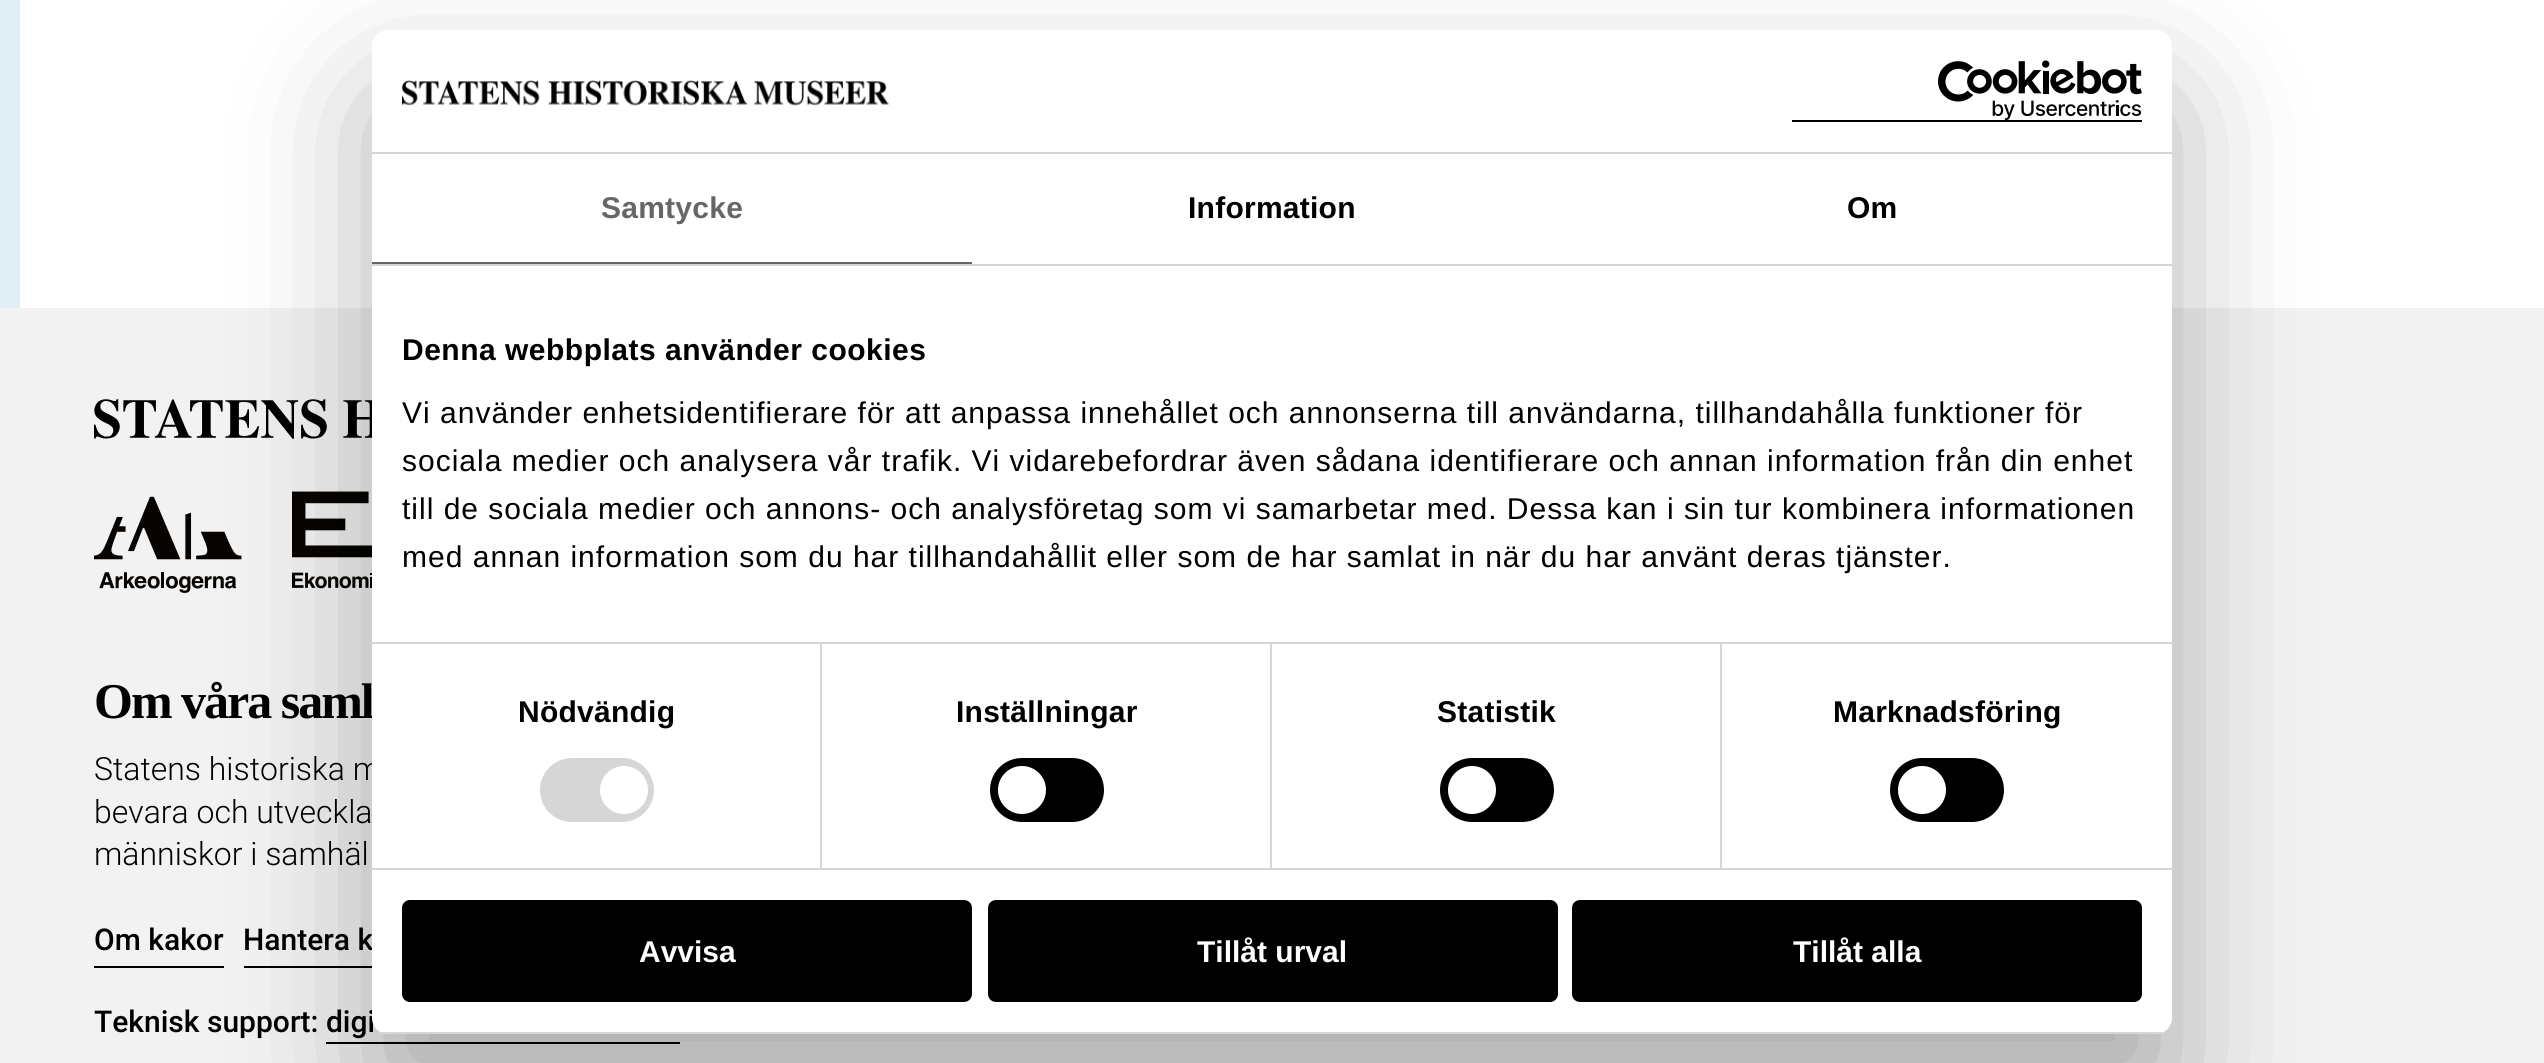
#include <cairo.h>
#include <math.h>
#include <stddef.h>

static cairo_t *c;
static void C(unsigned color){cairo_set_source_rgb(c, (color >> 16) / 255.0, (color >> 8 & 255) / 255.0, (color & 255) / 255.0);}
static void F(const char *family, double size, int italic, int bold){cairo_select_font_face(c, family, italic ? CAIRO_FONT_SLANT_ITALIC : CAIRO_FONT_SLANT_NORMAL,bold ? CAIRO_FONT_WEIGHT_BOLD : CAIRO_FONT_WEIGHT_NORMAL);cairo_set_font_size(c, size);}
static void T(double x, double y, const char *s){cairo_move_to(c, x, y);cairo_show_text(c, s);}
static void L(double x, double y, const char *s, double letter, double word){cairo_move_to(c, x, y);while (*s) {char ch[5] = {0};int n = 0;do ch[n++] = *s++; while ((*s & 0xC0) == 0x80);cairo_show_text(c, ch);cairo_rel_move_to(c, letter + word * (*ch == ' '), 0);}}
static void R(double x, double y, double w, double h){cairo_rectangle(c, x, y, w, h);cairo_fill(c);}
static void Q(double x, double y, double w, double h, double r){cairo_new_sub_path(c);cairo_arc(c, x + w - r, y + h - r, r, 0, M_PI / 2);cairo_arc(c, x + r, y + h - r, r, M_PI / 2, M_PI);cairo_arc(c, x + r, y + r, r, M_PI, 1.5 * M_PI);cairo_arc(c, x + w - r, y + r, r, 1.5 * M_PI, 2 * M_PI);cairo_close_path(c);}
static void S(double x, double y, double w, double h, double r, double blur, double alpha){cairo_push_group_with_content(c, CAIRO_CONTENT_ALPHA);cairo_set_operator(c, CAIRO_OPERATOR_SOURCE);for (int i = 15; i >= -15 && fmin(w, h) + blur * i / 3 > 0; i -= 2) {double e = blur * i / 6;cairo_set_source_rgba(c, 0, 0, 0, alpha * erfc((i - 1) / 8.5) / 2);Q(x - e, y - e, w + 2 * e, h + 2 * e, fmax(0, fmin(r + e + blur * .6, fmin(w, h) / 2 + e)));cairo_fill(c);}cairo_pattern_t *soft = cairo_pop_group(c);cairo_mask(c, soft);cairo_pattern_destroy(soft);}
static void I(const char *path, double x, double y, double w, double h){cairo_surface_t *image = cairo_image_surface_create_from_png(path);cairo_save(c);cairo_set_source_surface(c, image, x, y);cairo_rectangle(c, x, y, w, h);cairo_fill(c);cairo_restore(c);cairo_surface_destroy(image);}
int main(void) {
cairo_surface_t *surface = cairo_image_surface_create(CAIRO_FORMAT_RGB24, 2544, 1063);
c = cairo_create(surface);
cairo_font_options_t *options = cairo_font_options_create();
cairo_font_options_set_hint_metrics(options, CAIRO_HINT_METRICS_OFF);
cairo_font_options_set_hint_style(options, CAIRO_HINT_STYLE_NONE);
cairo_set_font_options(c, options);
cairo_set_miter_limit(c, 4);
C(0xffffff);
cairo_paint(c);
C(0xe2eef6);
R(0,0,20,308);
C(0xf2f2f2);
R(0,308,2544,755);
I("1.png",94,399,278,40);
I("2.png",94,496,148,97);
I("3.png",292,491,80,98);
F("Liberation Serif",50,0,1);
C(0x000000);
L(94,718,"Om våra saml",-2,0);
F("Roboto Light",32,0,0);
T(94,780,"Statens historiska m");
T(94,823,"bevara och utveckla");
T(94,865,"människor i samhäl");
R(94,966,130,2);
F("Roboto Medium",30,0,0);
T(94,950,"Om kakor");
R(244,966,128,2);
T(243,950,"Hantera k");
T(94,1032,"Teknisk support: digi");
R(326,1042,354,2);
C(0x000000);
S(372,94,1800,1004,16,68,.3);
C(0xffffff);
Q(372,30,1800,1004,16);
cairo_fill(c);
C(0xd6d6d6);
R(372,152,1800,2);
I("4.png",402,80,487,26);
C(0x000000);
R(1792,120,350,2);
I("5.png",1938,60,204,60);
C(0xd6d6d6);
R(372,264,1800,2);
C(0x666666);
R(372,262,600,2);
F("Liberation Sans",30,0,1);
L(601,218,"Samtycke",.25,0);
C(0x000000);
L(1188,218,"Information",.25,0);
L(1847,218,"Om",.25,0);
C(0xd6d6d6);
R(372,642,1800,2);
C(0x000000);
L(402,360,"Denna webbplats använder cookies",.5,0);
F("Liberation Sans",30,0,0);
L(402,423,"Vi använder enhetsidentifierare för att anpassa innehållet och annonserna till användarna, tillhandahålla funktioner för",1,0);
L(402,471,"sociala medier och analysera vår trafik. Vi vidarebefordrar även sådana identifierare och annan information från din enhet",1,0);
L(402,519,"till de sociala medier och annons- och analysföretag som vi samarbetar med. Dessa kan i sin tur kombinera informationen",1,0);
L(402,567,"med annan information som du har tillhandahållit eller som de har samlat in när du har använt deras tjänster.",1,0);
C(0xd6d6d6);
R(372,868,1800,2);
R(820,644,2,224);
F("Liberation Sans",30,0,1);
C(0x000000);
L(518,722,"Nödvändig",.25,0);
C(0xd6d6d6);
Q(540,758,114,64,32);
cairo_fill(c);
C(0xffffff);
cairo_arc(c,624,790,24,0,2 * M_PI);
cairo_fill(c);
C(0xd6d6d6);
R(1270,644,2,224);
C(0x000000);
L(956,722,"Inställningar",.25,0);
Q(990,758,114,64,32);
cairo_fill(c);
C(0xffffff);
cairo_arc(c,1022,790,24,0,2 * M_PI);
cairo_fill(c);
C(0xd6d6d6);
R(1720,644,2,224);
C(0x000000);
L(1437,722,"Statistik",.25,0);
Q(1440,758,114,64,32);
cairo_fill(c);
C(0xffffff);
cairo_arc(c,1472,790,24,0,2 * M_PI);
cairo_fill(c);
C(0x000000);
L(1833,722,"Marknadsföring",.25,0);
Q(1890,758,114,64,32);
cairo_fill(c);
C(0xffffff);
cairo_arc(c,1922,790,24,0,2 * M_PI);
cairo_fill(c);
cairo_save(c);
Q(372,30,1800,1004,16);
cairo_clip(c);
C(0xd6d6d6);
R(372,1032,1800,2);
cairo_restore(c);
C(0x000000);
Q(404,902,566,98,6);
cairo_fill_preserve(c);
cairo_set_line_width(c,4);
cairo_stroke(c);
C(0xffffff);
T(639,962,"Avvisa");
C(0x000000);
Q(990,902,566,98,6);
cairo_fill_preserve(c);
cairo_stroke(c);
C(0xffffff);
T(1197,962,"Tillåt urval");
C(0x000000);
Q(1574,902,566,98,6);
cairo_fill_preserve(c);
cairo_stroke(c);
C(0xffffff);
T(1793,962,"Tillåt alla");
cairo_surface_write_to_png(surface, "o.png");
cairo_font_options_destroy(options);
cairo_destroy(c);
cairo_surface_destroy(surface);
return 0;
}
